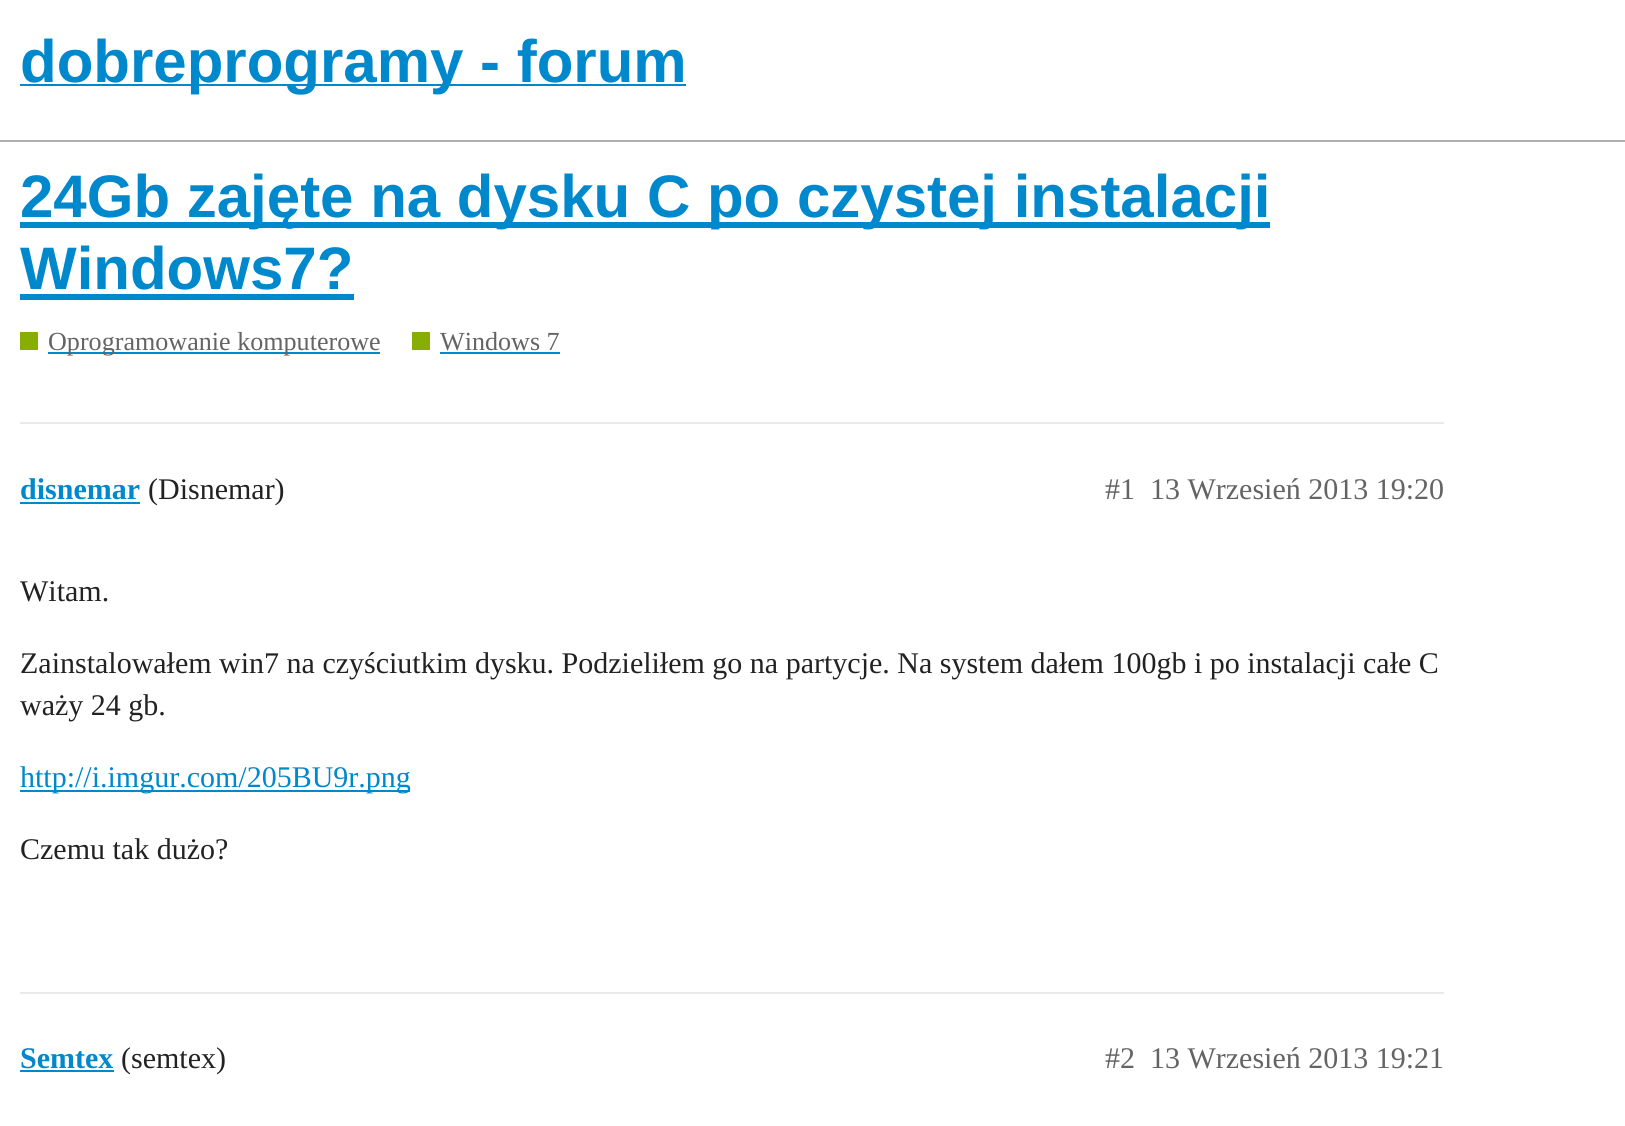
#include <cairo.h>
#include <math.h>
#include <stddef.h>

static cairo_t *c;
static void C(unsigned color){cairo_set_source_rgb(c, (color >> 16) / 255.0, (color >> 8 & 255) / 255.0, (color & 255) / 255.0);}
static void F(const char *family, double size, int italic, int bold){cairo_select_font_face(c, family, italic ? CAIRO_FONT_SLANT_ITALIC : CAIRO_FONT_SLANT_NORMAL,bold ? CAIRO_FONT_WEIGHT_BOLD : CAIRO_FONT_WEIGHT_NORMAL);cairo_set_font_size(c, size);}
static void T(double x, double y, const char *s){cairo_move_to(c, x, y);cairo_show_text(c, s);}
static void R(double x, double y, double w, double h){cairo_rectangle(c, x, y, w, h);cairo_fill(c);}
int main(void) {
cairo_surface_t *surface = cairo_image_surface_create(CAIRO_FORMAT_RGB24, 1625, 1126);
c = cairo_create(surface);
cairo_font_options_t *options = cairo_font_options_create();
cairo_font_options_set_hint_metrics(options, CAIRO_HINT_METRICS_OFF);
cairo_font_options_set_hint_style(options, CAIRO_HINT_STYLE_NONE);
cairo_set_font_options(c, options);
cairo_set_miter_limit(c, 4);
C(0xffffff);
cairo_paint(c);
C(0xafafaf);
R(0,140,1625,2);
C(0x0088cc);
R(20,84,666,2);
F("Liberation Sans",60,0,1);
T(20,82,"dobreprogramy - forum");
R(20,222,1250,6);
T(20,217,"24Gb zajęte na dysku C po czystej instalacji");
T(20,289,"Windows7?");
R(20,294,334,6);
C(0x88ae04);
R(20,332,18,18);
C(0x0088cc);
R(48,352,332,2);
F("Liberation Serif",26.1,0,0);
C(0x646464);
T(48,350,"Oprogramowanie komputerowe");
C(0x88ae04);
R(412,332,18,18);
C(0x646464);
T(440,350,"Windows 7");
C(0x0088cc);
R(440,352,120,2);
C(0xe9e9e9);
R(20,422,1424,2);
F("Liberation Serif",30,0,1);
C(0x0088cc);
T(20,499,"disnemar");
R(20,502,120,2);
F("Liberation Serif",30,0,0);
C(0x222222);
T(148,499,"(Disnemar)");
C(0x646464);
T(1105,499,"#1");
T(1150,499,"13 Wrzesień 2013 19:20");
C(0x222222);
T(20,601,"Witam.");
T(20,673,"Zainstalowałem win7 na czyściutkim dysku. Podzieliłem go na partycje. Na system dałem 100gb i po instalacji całe C");
T(20,715,"waży 24 gb.");
C(0x0088cc);
R(20,790,390,2);
T(20,787,"http://i.imgur.com/205BU9r.png");
C(0x222222);
T(20,859,"Czemu tak dużo?");
C(0xe9e9e9);
R(20,992,1424,2);
F("Liberation Serif",30,0,1);
C(0x0088cc);
T(20,1068,"Semtex");
R(20,1070,94,2);
F("Liberation Serif",30,0,0);
C(0x222222);
T(121,1068,"(semtex)");
C(0x646464);
T(1105,1068,"#2");
T(1150,1068,"13 Wrzesień 2013 19:21");
cairo_surface_write_to_png(surface, "o.png");
cairo_font_options_destroy(options);
cairo_destroy(c);
cairo_surface_destroy(surface);
return 0;
}
